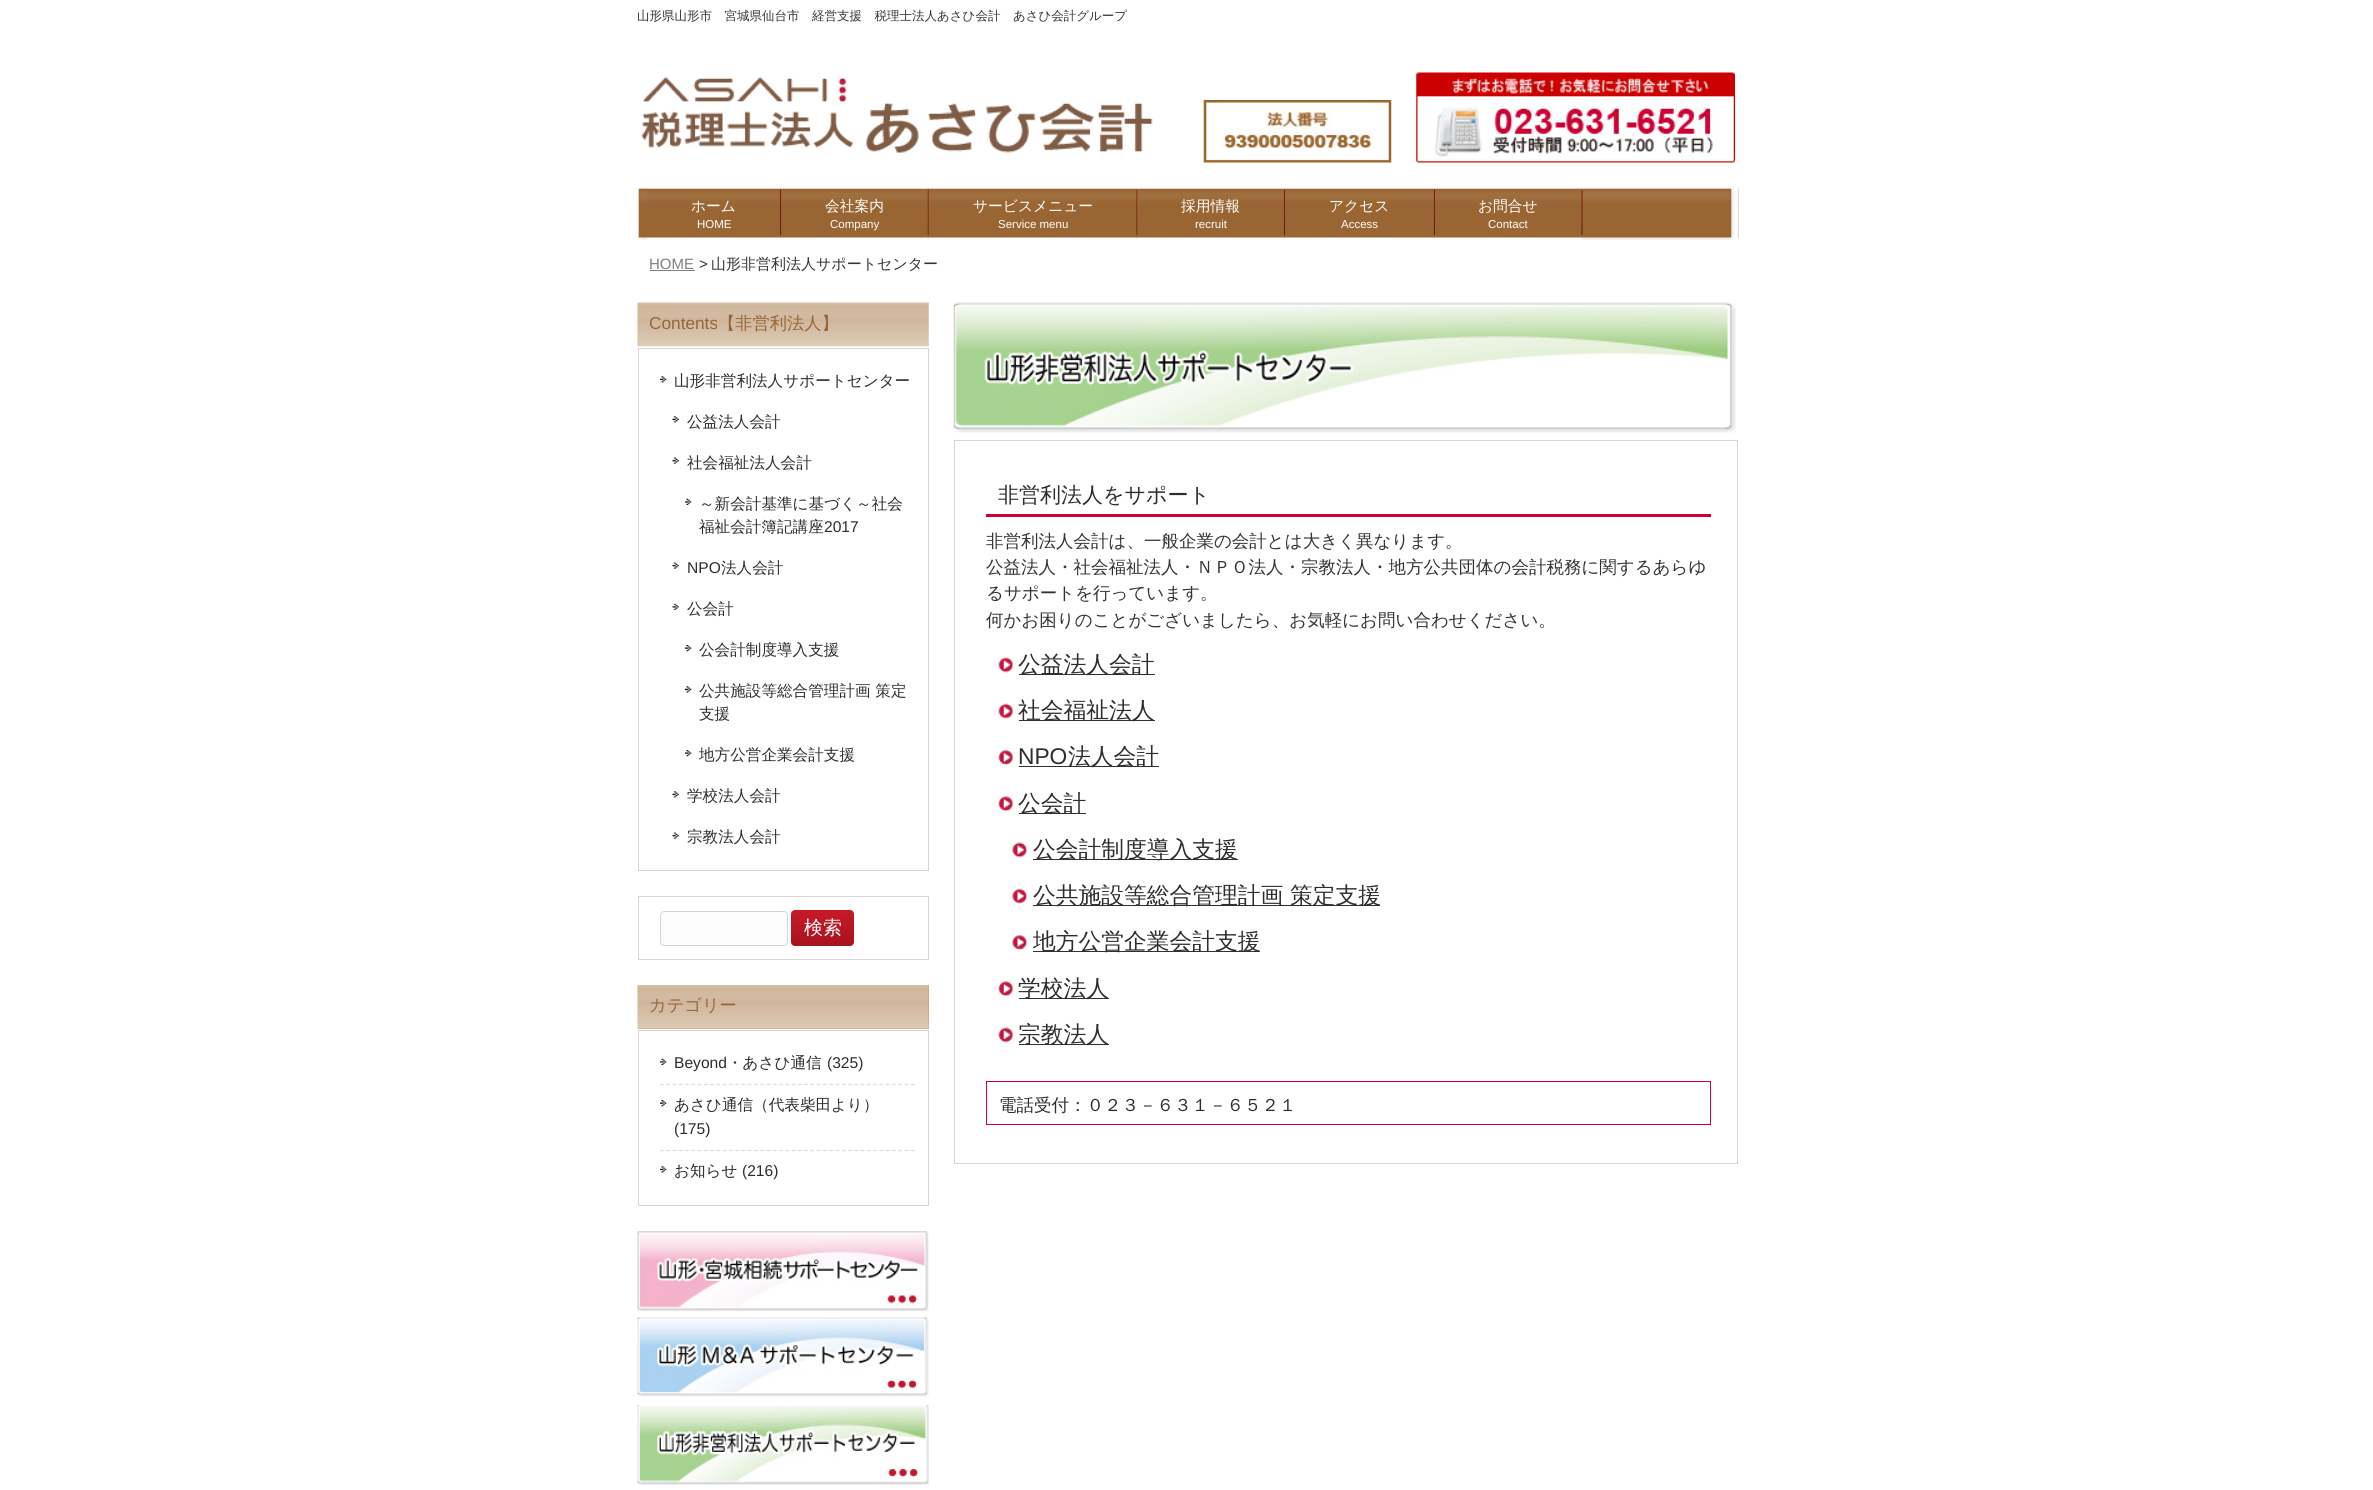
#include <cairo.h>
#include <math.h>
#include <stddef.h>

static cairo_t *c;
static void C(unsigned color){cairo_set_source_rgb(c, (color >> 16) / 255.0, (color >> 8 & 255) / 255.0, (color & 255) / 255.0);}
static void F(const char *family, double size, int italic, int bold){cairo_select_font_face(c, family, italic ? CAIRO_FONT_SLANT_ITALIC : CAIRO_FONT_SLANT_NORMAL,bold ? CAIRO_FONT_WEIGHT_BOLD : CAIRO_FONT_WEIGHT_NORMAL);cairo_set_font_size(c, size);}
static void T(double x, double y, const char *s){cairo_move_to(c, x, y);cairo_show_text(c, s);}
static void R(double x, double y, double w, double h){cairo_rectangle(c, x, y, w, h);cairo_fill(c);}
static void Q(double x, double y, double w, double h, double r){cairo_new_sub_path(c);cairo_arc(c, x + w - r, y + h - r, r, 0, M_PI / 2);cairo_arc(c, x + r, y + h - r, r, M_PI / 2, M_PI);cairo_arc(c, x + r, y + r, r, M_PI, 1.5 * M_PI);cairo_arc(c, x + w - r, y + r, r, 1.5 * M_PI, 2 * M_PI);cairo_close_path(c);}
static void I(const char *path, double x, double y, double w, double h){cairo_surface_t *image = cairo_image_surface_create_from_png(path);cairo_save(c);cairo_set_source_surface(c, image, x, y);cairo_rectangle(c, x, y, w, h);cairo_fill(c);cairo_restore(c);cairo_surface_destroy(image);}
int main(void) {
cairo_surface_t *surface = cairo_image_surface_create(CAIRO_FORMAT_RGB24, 2373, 1490);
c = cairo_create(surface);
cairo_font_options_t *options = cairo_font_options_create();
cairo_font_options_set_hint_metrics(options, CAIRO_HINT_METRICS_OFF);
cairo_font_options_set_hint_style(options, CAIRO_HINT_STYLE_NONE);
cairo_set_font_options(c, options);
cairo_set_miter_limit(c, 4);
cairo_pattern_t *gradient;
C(0xffffff);
cairo_paint(c);
F("WenQuanYi Zen Hei Medium",12.5,0,0);
C(0x333333);
T(637,20,"山形県山形市　宮城県仙台市　経営支援　税理士法人あさひ会計　あさひ会計グループ");
I("1.png",641,77,512,76);
I("2.png",1203,100,189,63);
I("3.png",1416,72,319,91);
I("4.png",636,187,1103,53);
I("5.png",780,190,2,45);
I("6.png",647,187,133,53);
F("WenQuanYi Zen Hei Medium",14.75,0,0);
C(0xffffff);
T(691,211,"ホーム");
F("Liberation Sans",11.5,0,0);
T(697,228,"HOME");
I("7.png",927,190,2,45);
I("8.png",781,187,147,53);
F("WenQuanYi Zen Hei Medium",14.75,0,0);
T(825,211,"会社案内");
F("Liberation Sans",11.5,0,0);
T(830,228,"Company");
I("9.png",1136,190,2,45);
I("10.png",928,187,209,53);
F("WenQuanYi Zen Hei Medium",14.75,0,0);
T(973,211,"サービスメニュー");
F("Liberation Sans",11.5,0,0);
T(998,228,"Service menu");
I("11.png",1283,190,2,45);
I("12.png",1137,187,147,53);
F("WenQuanYi Zen Hei Medium",14.75,0,0);
T(1181,211,"採用情報");
F("Liberation Sans",11.5,0,0);
T(1195,228,"recruit");
I("11.png",1433,190,2,45);
I("13.png",1285,187,149,53);
F("WenQuanYi Zen Hei Medium",14.75,0,0);
T(1329,211,"アクセス");
F("Liberation Sans",11.5,0,0);
T(1341,228,"Access");
I("9.png",1581,190,2,45);
I("14.png",1435,187,147,53);
F("WenQuanYi Zen Hei Medium",14.75,0,0);
T(1478,211,"お問合せ");
F("Liberation Sans",11.5,0,0);
T(1488,228,"Contact");
F("Liberation Sans",15,0,0);
C(0x808080);
T(649,269,"HOME");
R(650,270,45,1);
C(0x333333);
T(699,269,">");
F("WenQuanYi Zen Hei Medium",15,0,0);
T(711,269,"山形非営利法人サポートセンター");
I("15.png",637,302,292,45);
F("Liberation Sans",17.25,0,0);
C(0x996633);
T(649,329,"Contents");
F("WenQuanYi Zen Hei Medium",17.25,0,0);
T(718,329,"【非営利法人】");
cairo_rectangle(c,638.5,348.5,290,522);
C(0xd5d5d5);
cairo_set_line_width(c,1);
cairo_stroke(c);
I("16.png",660,376,7,7);
F("WenQuanYi Zen Hei Medium",15.6,0,0);
C(0x2e2c2c);
T(674,386,"山形非営利法人サポートセンター");
I("17.png",672,416,7,7);
T(687,427,"公益法人会計");
I("18.png",672,457,7,7);
T(687,468,"社会福祉法人会計");
I("19.png",685,498,7,7);
T(699,509,"～新会計基準に基づく～社会");
T(699,532,"福祉会計簿記講座");
F("Liberation Sans",15.6,0,0);
T(824,532,"2017");
I("18.png",672,562,7,7);
T(687,573,"NPO");
F("WenQuanYi Zen Hei Medium",15.6,0,0);
T(721,573,"法人会計");
I("20.png",672,603,7,7);
T(687,614,"公会計");
I("21.png",685,645,7,7);
T(699,655,"公会計制度導入支援");
I("16.png",685,686,7,7);
T(699,696,"公共施設等総合管理計画 策定");
T(699,719,"支援");
I("21.png",685,750,7,7);
T(699,760,"地方公営企業会計支援");
I("17.png",672,791,7,7);
T(687,801,"学校法人会計");
I("18.png",672,832,7,7);
T(687,842,"宗教法人会計");
cairo_rectangle(c,638.5,896.5,290,63);
C(0xd5d5d5);
cairo_stroke(c);
C(0xfcfcfc);
Q(660.5,911.5,127,34,3.5);
cairo_fill_preserve(c);
C(0xd4d4d7);
cairo_stroke(c);
gradient = cairo_pattern_create_linear(823,910,823,946);
cairo_pattern_add_color_stop_rgba(gradient,0,0.78,0.102,0.157,1);
cairo_pattern_add_color_stop_rgba(gradient,1,0.659,0.071,0.122,1);
cairo_set_source(c,gradient);
cairo_pattern_destroy(gradient);
Q(791,910,63,36,4);
cairo_fill(c);
F("WenQuanYi Zen Hei Medium",19,0,0);
C(0xffffff);
T(804,934,"検索");
C(0xd2691e);
R(638,985,291,44);
I("22.png",637,985,292,44);
F("WenQuanYi Zen Hei Medium",17.25,0,0);
C(0x996633);
T(649,1011,"カテゴリー");
cairo_rectangle(c,638.5,1030.5,290,175);
C(0xd5d5d5);
cairo_stroke(c);
I("19.png",660,1058,7,7);
cairo_new_path(c);
cairo_move_to(c,660,1084.5);
cairo_line_to(c,915,1084.5);
C(0xdcdcdc);
cairo_set_line_width(c,1.2);
cairo_set_dash(c,(double[]){3.75,2.52},2,0);
cairo_stroke(c);
F("Liberation Sans",15.6,0,0);
C(0x2e2c2c);
T(674,1068,"Beyond");
F("WenQuanYi Zen Hei Medium",15.6,0,0);
T(727,1068,"・あさひ通信");
F("Liberation Sans",15.6,0,0);
T(827,1068,"(325)");
I("21.png",660,1100,7,7);
cairo_new_path(c);
cairo_move_to(c,660,1150.5);
cairo_line_to(c,915,1150.5);
C(0xdcdcdc);
cairo_stroke(c);
F("WenQuanYi Zen Hei Medium",15.6,0,0);
C(0x2e2c2c);
T(674,1110,"あさひ通信（代表柴田より）");
F("Liberation Sans",15.6,0,0);
T(674,1134,"(175)");
I("16.png",660,1166,7,7);
F("WenQuanYi Zen Hei Medium",15.6,0,0);
T(674,1176,"お知らせ");
F("Liberation Sans",15.6,0,0);
T(742,1176,"(216)");
I("23.png",637,1231,292,81);
I("24.png",637,1317,292,80);
I("25.png",637,1405,292,80);
I("26.png",953,302,783,131);
cairo_rectangle(c,954.5,440.5,783,723);
C(0xd5d5d5);
cairo_set_line_width(c,1);
cairo_set_dash(c,NULL,0,0);
cairo_stroke(c);
C(0xcc0033);
R(986,514,725,3);
F("WenQuanYi Zen Hei Medium",21,0,0);
C(0x2e2c2c);
T(998,502,"非営利法人をサポート");
F("WenQuanYi Zen Hei Medium",17.5,0,0);
C(0x333333);
T(986,547,"非営利法人会計は、一般企業の会計とは大きく異なります。");
T(986,573,"公益法人・社会福祉法人・ＮＰＯ法人・宗教法人・地方公共団体の会計税務に関するあらゆ");
T(986,599,"るサポートを行っています。");
T(986,626,"何かお困りのことがございましたら、お気軽にお問い合わせください。");
I("27.png",998,657,15,16);
C(0x313131);
R(1019,674,136,1);
F("WenQuanYi Zen Hei Medium",22.75,0,0);
C(0x2e2c2c);
T(1018,672,"公益法人会計");
I("28.png",998,703,15,16);
C(0x313131);
R(1019,720,136,1);
C(0x2e2c2c);
T(1018,718,"社会福祉法人");
I("29.png",998,750,15,15);
F("Liberation Sans",22.75,0,0);
T(1018,764,"NPO");
C(0x313131);
R(1019,766,140,1);
F("WenQuanYi Zen Hei Medium",22.75,0,0);
C(0x2e2c2c);
T(1068,764,"法人会計");
I("30.png",998,796,15,16);
C(0x313131);
R(1019,813,67,1);
C(0x2e2c2c);
T(1018,811,"公会計");
I("31.png",1012,842,15,16);
C(0x313131);
R(1033,859,205,1);
C(0x2e2c2c);
T(1033,857,"公会計制度導入支援");
I("32.png",1012,888,15,16);
C(0x313131);
R(1033,905,347,1);
C(0x2e2c2c);
T(1033,903,"公共施設等総合管理計画 策定支援");
I("33.png",1012,935,15,15);
C(0x313131);
R(1033,951,227,1);
C(0x2e2c2c);
T(1033,949,"地方公営企業会計支援");
I("30.png",998,981,15,16);
C(0x313131);
R(1019,998,90,1);
C(0x2e2c2c);
T(1018,996,"学校法人");
I("27.png",998,1027,15,16);
C(0x313131);
R(1019,1044,90,1);
C(0x2e2c2c);
T(1018,1042,"宗教法人");
cairo_rectangle(c,986.5,1081.5,724,43);
C(0xcc0033);
cairo_stroke(c);
F("WenQuanYi Zen Hei Medium",17.5,0,0);
C(0x2e2c2c);
T(999,1111,"電話受付：０２３－６３１－６５２１");
cairo_surface_write_to_png(surface, "o.png");
cairo_font_options_destroy(options);
cairo_destroy(c);
cairo_surface_destroy(surface);
return 0;
}
